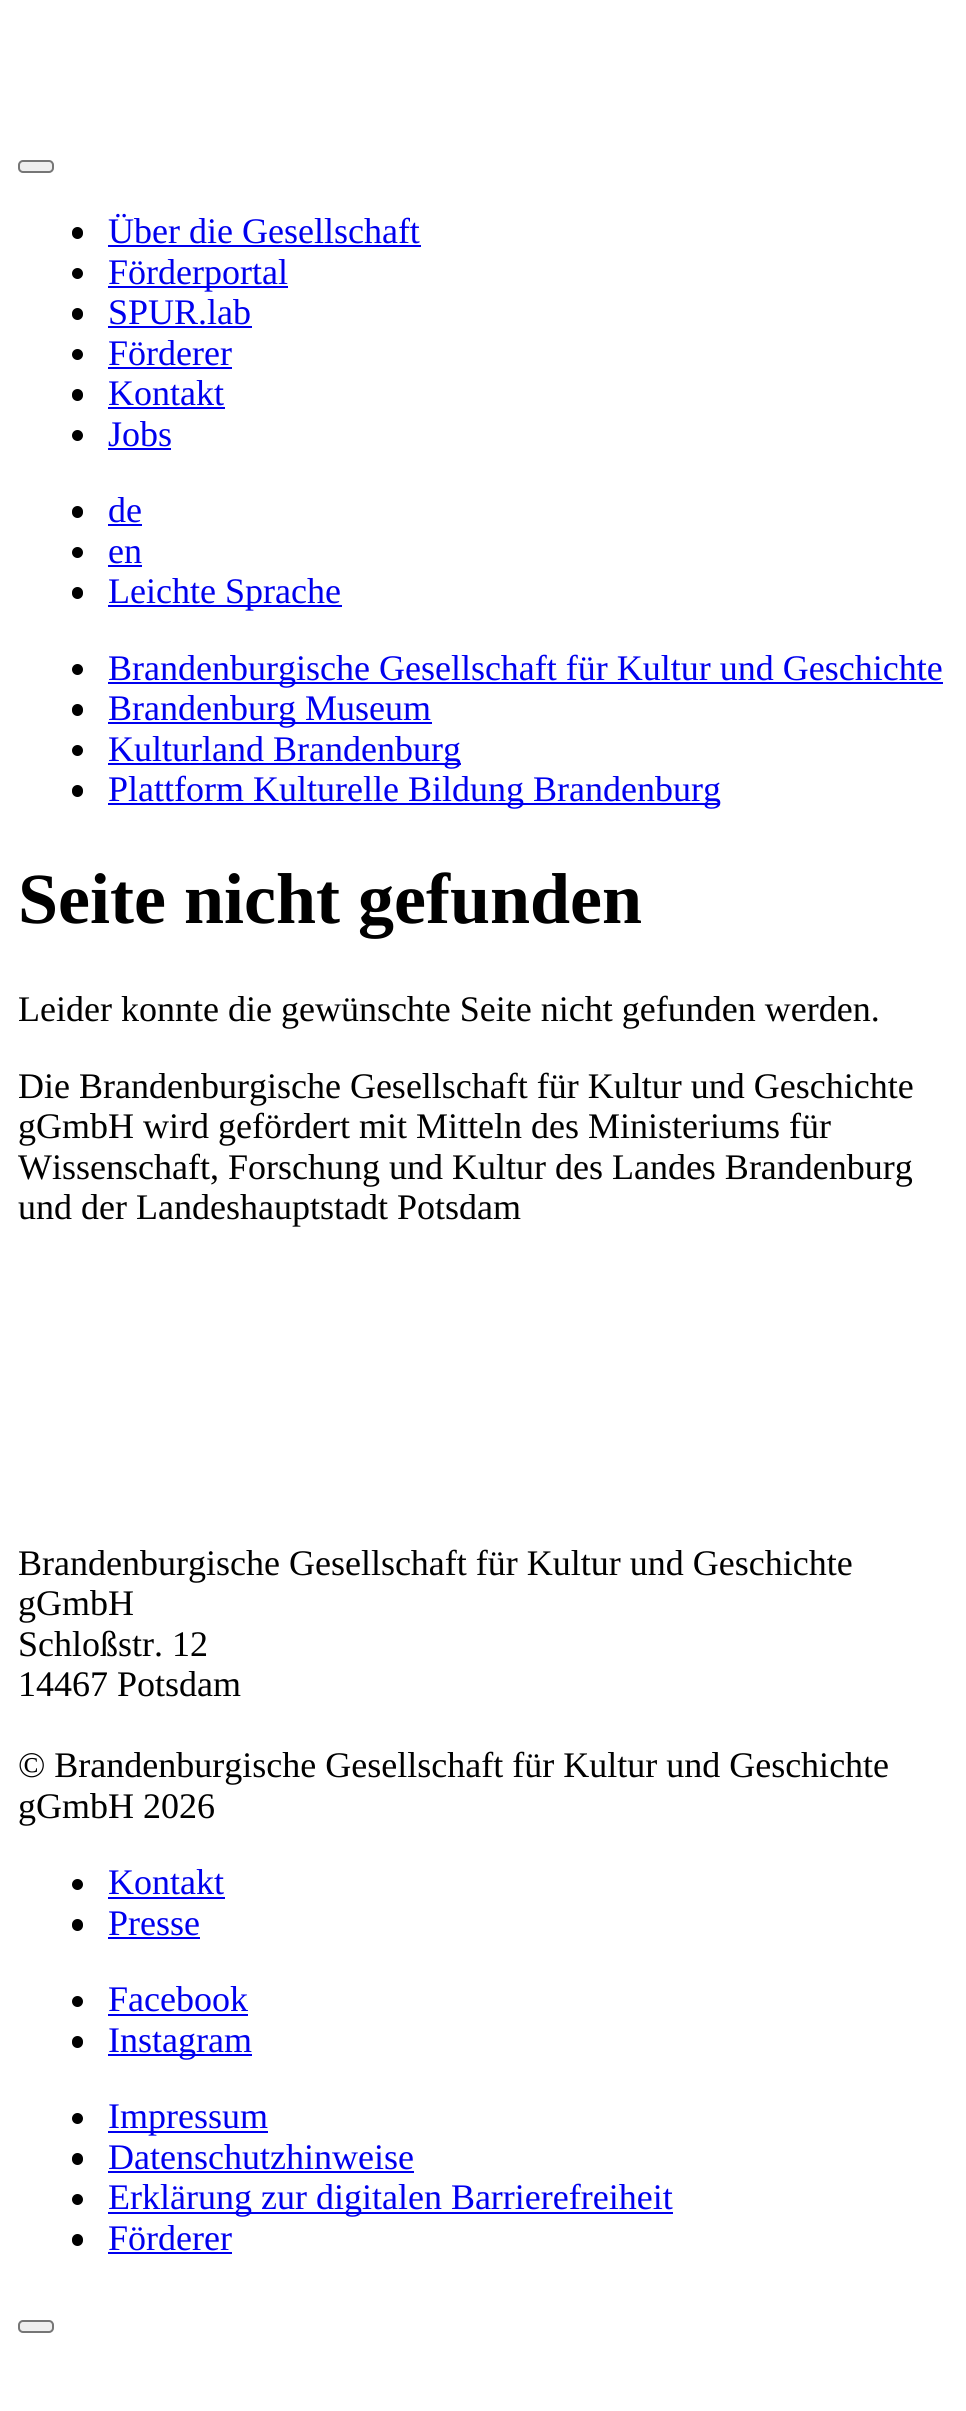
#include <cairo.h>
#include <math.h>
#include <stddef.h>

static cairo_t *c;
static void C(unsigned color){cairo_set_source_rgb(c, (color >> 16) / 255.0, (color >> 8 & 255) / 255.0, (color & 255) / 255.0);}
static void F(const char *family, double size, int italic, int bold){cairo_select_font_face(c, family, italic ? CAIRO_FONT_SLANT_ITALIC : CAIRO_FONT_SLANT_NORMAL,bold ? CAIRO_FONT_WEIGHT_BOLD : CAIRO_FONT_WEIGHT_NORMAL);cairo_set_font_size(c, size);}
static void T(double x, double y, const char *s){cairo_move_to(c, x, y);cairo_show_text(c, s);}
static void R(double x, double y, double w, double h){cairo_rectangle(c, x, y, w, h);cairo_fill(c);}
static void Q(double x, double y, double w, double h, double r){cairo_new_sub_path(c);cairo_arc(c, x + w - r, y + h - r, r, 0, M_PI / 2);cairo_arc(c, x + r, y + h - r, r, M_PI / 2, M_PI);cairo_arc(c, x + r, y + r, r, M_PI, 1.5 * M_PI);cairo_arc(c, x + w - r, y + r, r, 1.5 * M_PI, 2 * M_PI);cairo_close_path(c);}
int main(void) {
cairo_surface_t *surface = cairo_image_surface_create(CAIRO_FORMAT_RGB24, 966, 2411);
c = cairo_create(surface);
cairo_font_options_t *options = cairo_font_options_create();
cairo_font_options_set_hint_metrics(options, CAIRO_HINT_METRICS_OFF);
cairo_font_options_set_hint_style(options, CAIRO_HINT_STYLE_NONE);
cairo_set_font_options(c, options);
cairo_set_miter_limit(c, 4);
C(0xffffff);
cairo_paint(c);
C(0xefefef);
Q(19,161,34,11,4);
cairo_fill_preserve(c);
C(0x767676);
cairo_stroke(c);
C(0x000000);
Q(72,227,11,12,5.5);
cairo_fill(c);
F("Liberation Serif",36,0,0);
C(0x0000ee);
T(108,243,"Über die Gesellschaft");
R(108,245,313,2);
C(0x000000);
cairo_new_path(c);
cairo_arc(c,77.5,273.5,5.5,0,2 * M_PI);
cairo_fill(c);
C(0x0000ee);
R(108,286,180,2);
T(108,284,"Förderportal");
C(0x000000);
Q(72,308,11,12,5.5);
cairo_fill(c);
C(0x0000ee);
T(108,324,"SPUR.lab");
R(108,326,144,2);
C(0x000000);
cairo_new_path(c);
cairo_arc(c,77.5,354.5,5.5,0,2 * M_PI);
cairo_fill(c);
C(0x0000ee);
T(108,365,"Förderer");
R(108,367,124,2);
C(0x000000);
Q(72,389,11,12,5.5);
cairo_fill(c);
C(0x0000ee);
T(108,405,"Kontakt");
R(108,407,117,2);
C(0x000000);
cairo_new_path(c);
cairo_arc(c,77.5,435.5,5.5,0,2 * M_PI);
cairo_fill(c);
C(0x0000ee);
T(108,446,"Jobs");
R(108,448,63,2);
C(0x000000);
Q(72,506,11,12,5.5);
cairo_fill(c);
C(0x0000ee);
T(108,522,"de");
R(108,524,34,2);
C(0x000000);
cairo_new_path(c);
cairo_arc(c,77.5,552.5,5.5,0,2 * M_PI);
cairo_fill(c);
C(0x0000ee);
T(108,563,"en");
R(108,565,34,2);
C(0x000000);
Q(72,587,11,12,5.5);
cairo_fill(c);
C(0x0000ee);
R(108,605,234,2);
T(108,603,"Leichte Sprache");
C(0x000000);
cairo_new_path(c);
cairo_arc(c,77.5,669.5,5.5,0,2 * M_PI);
cairo_fill(c);
C(0x0000ee);
R(108,682,835,2);
T(108,680,"Brandenburgische Gesellschaft für Kultur und Geschichte");
C(0x000000);
Q(72,704,11,12,5.5);
cairo_fill(c);
C(0x0000ee);
R(108,722,324,2);
T(108,720,"Brandenburg Museum");
C(0x000000);
cairo_new_path(c);
cairo_arc(c,77.5,750.5,5.5,0,2 * M_PI);
cairo_fill(c);
C(0x0000ee);
R(108,763,353,2);
T(108,761,"Kulturland Brandenburg");
C(0x000000);
Q(72,785,11,12,5.5);
cairo_fill(c);
C(0x0000ee);
R(108,803,612,2);
T(108,801,"Plattform Kulturelle Bildung Brandenburg");
F("Liberation Serif",72,0,1);
C(0x000000);
T(18,923,"Seite nicht gefunden");
F("Liberation Serif",36,0,0);
T(18,1021,"Leider konnte die gewünschte Seite nicht gefunden werden.");
T(18,1098,"Die Brandenburgische Gesellschaft für Kultur und Geschichte");
T(18,1138,"gGmbH wird gefördert mit Mitteln des Ministeriums für");
T(18,1179,"Wissenschaft, Forschung und Kultur des Landes Brandenburg");
T(18,1219,"und der Landeshauptstadt Potsdam");
T(18,1575,"Brandenburgische Gesellschaft für Kultur und Geschichte");
T(18,1615,"gGmbH");
T(18,1656,"Schloßstr. 12");
T(18,1696,"14467 Potsdam");
T(18,1777,"© Brandenburgische Gesellschaft für Kultur und Geschichte");
T(18,1818,"gGmbH 2026");
cairo_new_path(c);
cairo_arc(c,77.5,1884.5,5.5,0,2 * M_PI);
cairo_fill(c);
C(0x0000ee);
T(108,1894,"Kontakt");
R(108,1897,117,2);
C(0x000000);
Q(72,1919,11,12,5.5);
cairo_fill(c);
C(0x0000ee);
T(108,1935,"Presse");
R(108,1937,92,2);
C(0x000000);
cairo_new_path(c);
cairo_arc(c,77.5,2001.5,5.5,0,2 * M_PI);
cairo_fill(c);
C(0x0000ee);
T(108,2011,"Facebook");
R(108,2014,140,2);
C(0x000000);
Q(72,2036,11,12,5.5);
cairo_fill(c);
C(0x0000ee);
R(108,2054,144,2);
T(108,2052,"Instagram");
C(0x000000);
cairo_new_path(c);
cairo_arc(c,77.5,2118.5,5.5,0,2 * M_PI);
cairo_fill(c);
C(0x0000ee);
R(108,2131,160,2);
T(108,2128,"Impressum");
C(0x000000);
Q(72,2153,11,12,5.5);
cairo_fill(c);
C(0x0000ee);
T(108,2169,"Datenschutzhinweise");
R(108,2171,306,2);
C(0x000000);
cairo_new_path(c);
cairo_arc(c,77.5,2199.5,5.5,0,2 * M_PI);
cairo_fill(c);
C(0x0000ee);
R(108,2212,565,2);
T(108,2209,"Erklärung zur digitalen Barrierefreiheit");
C(0x000000);
Q(72,2234,11,12,5.5);
cairo_fill(c);
C(0x0000ee);
T(108,2250,"Förderer");
R(108,2252,124,2);
C(0xefefef);
Q(19,2321,34,11,4);
cairo_fill_preserve(c);
C(0x767676);
cairo_stroke(c);
cairo_surface_write_to_png(surface, "o.png");
cairo_font_options_destroy(options);
cairo_destroy(c);
cairo_surface_destroy(surface);
return 0;
}
